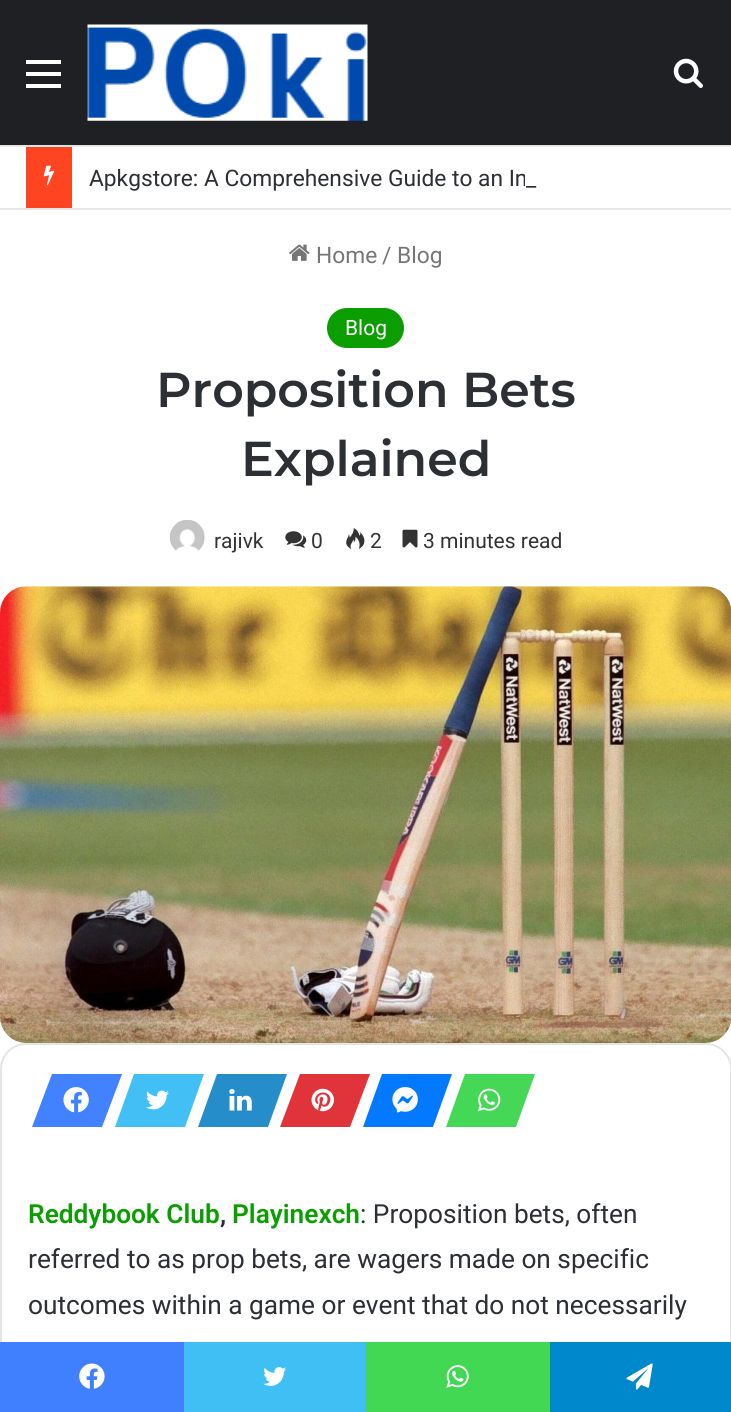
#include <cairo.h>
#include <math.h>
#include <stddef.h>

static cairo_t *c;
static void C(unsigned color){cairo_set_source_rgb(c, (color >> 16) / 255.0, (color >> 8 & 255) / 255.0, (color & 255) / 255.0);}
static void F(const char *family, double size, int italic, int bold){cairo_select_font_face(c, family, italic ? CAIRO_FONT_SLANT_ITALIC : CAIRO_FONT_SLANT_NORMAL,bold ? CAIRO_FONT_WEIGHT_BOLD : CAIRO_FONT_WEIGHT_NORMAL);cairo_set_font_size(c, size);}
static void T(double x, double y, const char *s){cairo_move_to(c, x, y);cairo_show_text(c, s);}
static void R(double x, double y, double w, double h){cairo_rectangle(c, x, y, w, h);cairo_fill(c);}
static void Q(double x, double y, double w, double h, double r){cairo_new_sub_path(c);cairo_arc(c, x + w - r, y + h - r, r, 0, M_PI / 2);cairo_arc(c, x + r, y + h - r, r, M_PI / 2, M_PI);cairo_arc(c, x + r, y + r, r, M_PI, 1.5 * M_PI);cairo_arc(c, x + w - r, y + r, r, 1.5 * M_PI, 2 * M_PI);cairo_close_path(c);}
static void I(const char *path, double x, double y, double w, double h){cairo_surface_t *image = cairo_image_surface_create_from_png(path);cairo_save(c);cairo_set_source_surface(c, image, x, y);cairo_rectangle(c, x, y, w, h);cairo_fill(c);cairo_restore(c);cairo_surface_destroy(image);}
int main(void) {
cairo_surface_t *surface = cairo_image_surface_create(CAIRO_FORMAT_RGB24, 731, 1412);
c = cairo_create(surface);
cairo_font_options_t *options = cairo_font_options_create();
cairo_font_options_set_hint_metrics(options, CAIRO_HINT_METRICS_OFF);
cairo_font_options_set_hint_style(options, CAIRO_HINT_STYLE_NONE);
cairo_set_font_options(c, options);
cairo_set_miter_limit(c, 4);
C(0xffffff);
cairo_paint(c);
C(0x1f2024);
R(0,0,731,145);
C(0xffffff);
R(26,72,35,4);
R(26,60,35,4);
R(26,84,35,4);
I("1.png",87,24,281,97);
I("2.png",673,58,30,30);
C(0xe6e6e6);
R(0,145,731,2);
R(0,208,731,2);
C(0xff4422);
R(26,147,46,61);
I("3.png",43,165,12,21);
F("Roboto",22.75,0,0);
C(0x2c2f34);
T(89,186,"Apkgstore: A Comprehensive Guide to an In");
C(0xffffff);
R(525,174,2,12);
C(0x2c2f34);
T(526,186,"_");
I("4.png",289,244,21,17);
C(0x767676);
T(316,263,"Home");
T(382,263,"/");
T(397,263,"Blog");
C(0x0a9e01);
Q(327,308,77,40,20);
cairo_fill(c);
F("Roboto",21,0,0);
C(0xffffff);
T(345,335,"Blog");
F("Montserrat SemiBold",49,0,0);
C(0x2c2f34);
T(156,407,"Proposition Bets");
T(241,476,"Explained");
I("5.png",169,520,36,31);
F("Roboto",21,0,0);
C(0x333333);
T(214,548,"rajivk");
I("6.png",285,531,22,17);
T(311,548,"0");
I("7.png",346,528,19,21);
T(370,548,"2");
I("8.png",402,529,16,19);
T(423,548,"3 minutes read");
I("9.png",0,586,731,457);
Q(1,1044,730,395,25);
C(0xe5e5e5);
cairo_stroke(c);
C(0x4281ff);
cairo_new_path(c);
cairo_move_to(c,52,1074);
cairo_line_to(c,122,1074);
cairo_line_to(c,102,1127);
cairo_line_to(c,32,1127);
cairo_close_path(c);
cairo_fill(c);
I("10.png",63,1087,26,26);
C(0x42c0f5);
cairo_new_path(c);
cairo_move_to(c,134,1074);
cairo_line_to(c,204,1074);
cairo_line_to(c,185,1127);
cairo_line_to(c,115,1127);
cairo_close_path(c);
cairo_fill(c);
I("11.png",146,1090,23,20);
C(0x258dc9);
cairo_new_path(c);
cairo_move_to(c,217,1074);
cairo_line_to(c,287,1074);
cairo_line_to(c,268,1127);
cairo_line_to(c,198,1127);
cairo_close_path(c);
cairo_fill(c);
I("12.png",229,1089,23,22);
C(0xe1333a);
cairo_new_path(c);
cairo_move_to(c,300,1074);
cairo_line_to(c,370,1074);
cairo_line_to(c,350,1127);
cairo_line_to(c,280,1127);
cairo_close_path(c);
cairo_fill(c);
I("13.png",311,1088,23,24);
C(0x0379ff);
cairo_new_path(c);
cairo_move_to(c,382,1074);
cairo_line_to(c,452,1074);
cairo_line_to(c,433,1127);
cairo_line_to(c,363,1127);
cairo_close_path(c);
cairo_fill(c);
I("14.png",392,1087,26,26);
C(0x45d856);
cairo_new_path(c);
cairo_move_to(c,465,1074);
cairo_line_to(c,535,1074);
cairo_line_to(c,516,1127);
cairo_line_to(c,446,1127);
cairo_close_path(c);
cairo_fill(c);
I("15.png",477,1088,24,24);
F("Roboto SemiBold",26.25,0,0);
C(0x0a9e01);
T(28,1223,"Reddybook Club");
C(0x2c2f34);
T(220,1223,",");
C(0x0a9e01);
T(232,1223,"Playinexch");
F("Roboto",26.25,0,0);
C(0x2c2f34);
T(360,1223,": Proposition bets, often");
T(28,1268,"referred to as prop bets, are wagers made on specific");
T(28,1314,"outcomes within a game or event that do not necessarily");
C(0x4080ff);
R(0,1342,184,70);
I("16.png",79,1363,26,26);
C(0x40bff5);
R(184,1342,182,70);
I("17.png",263,1367,24,19);
C(0x43d854);
R(366,1342,184,70);
I("18.png",446,1365,23,23);
C(0x0088cc);
R(550,1342,181,70);
I("19.png",626,1363,27,27);
cairo_surface_write_to_png(surface, "o.png");
cairo_font_options_destroy(options);
cairo_destroy(c);
cairo_surface_destroy(surface);
return 0;
}
